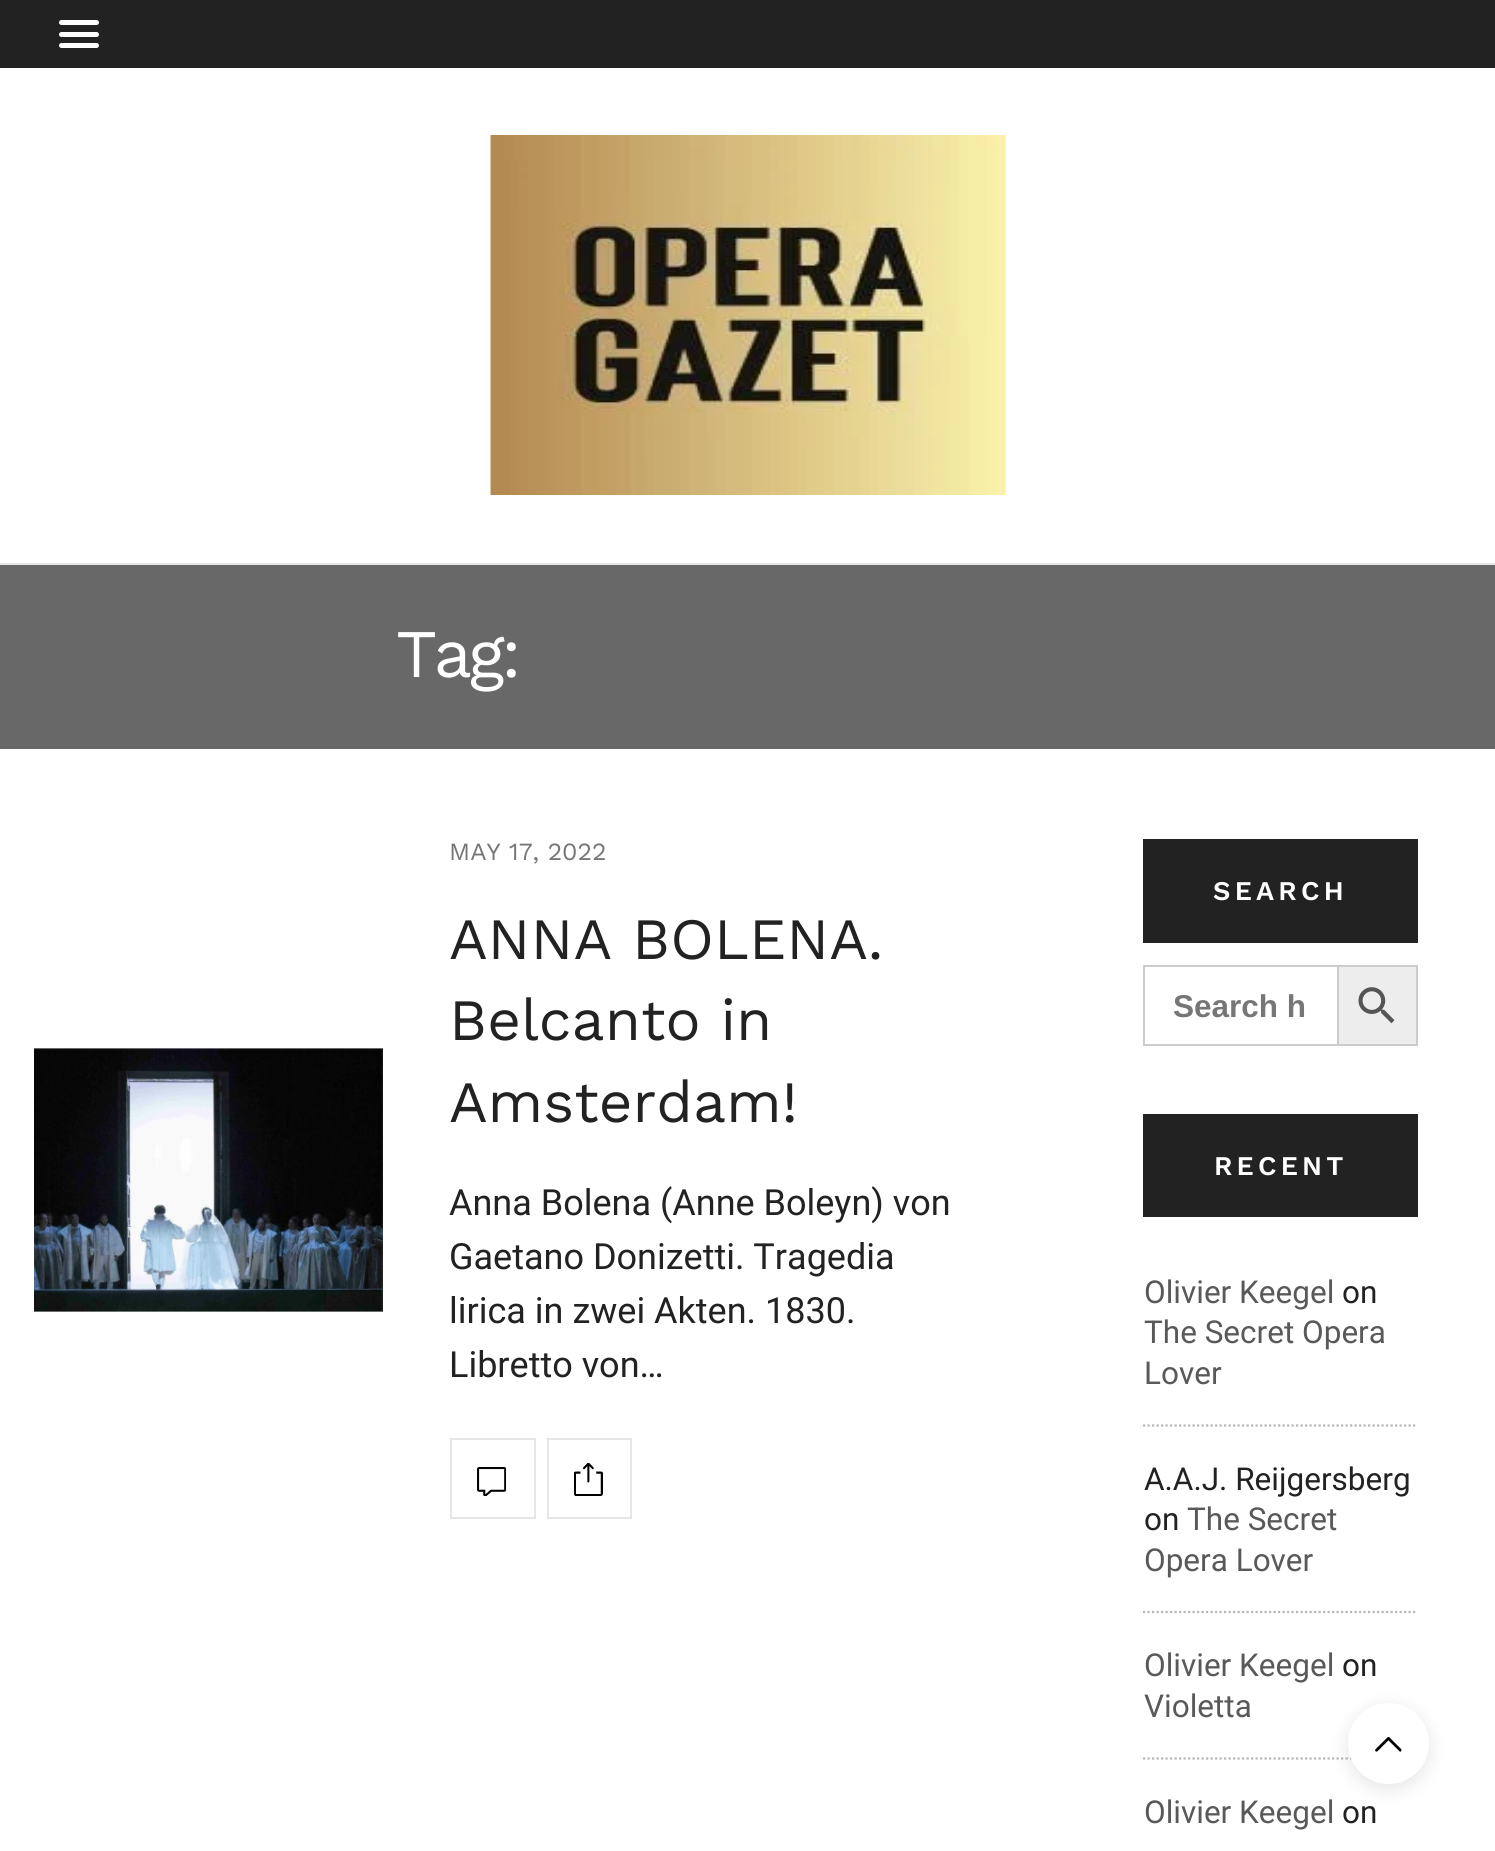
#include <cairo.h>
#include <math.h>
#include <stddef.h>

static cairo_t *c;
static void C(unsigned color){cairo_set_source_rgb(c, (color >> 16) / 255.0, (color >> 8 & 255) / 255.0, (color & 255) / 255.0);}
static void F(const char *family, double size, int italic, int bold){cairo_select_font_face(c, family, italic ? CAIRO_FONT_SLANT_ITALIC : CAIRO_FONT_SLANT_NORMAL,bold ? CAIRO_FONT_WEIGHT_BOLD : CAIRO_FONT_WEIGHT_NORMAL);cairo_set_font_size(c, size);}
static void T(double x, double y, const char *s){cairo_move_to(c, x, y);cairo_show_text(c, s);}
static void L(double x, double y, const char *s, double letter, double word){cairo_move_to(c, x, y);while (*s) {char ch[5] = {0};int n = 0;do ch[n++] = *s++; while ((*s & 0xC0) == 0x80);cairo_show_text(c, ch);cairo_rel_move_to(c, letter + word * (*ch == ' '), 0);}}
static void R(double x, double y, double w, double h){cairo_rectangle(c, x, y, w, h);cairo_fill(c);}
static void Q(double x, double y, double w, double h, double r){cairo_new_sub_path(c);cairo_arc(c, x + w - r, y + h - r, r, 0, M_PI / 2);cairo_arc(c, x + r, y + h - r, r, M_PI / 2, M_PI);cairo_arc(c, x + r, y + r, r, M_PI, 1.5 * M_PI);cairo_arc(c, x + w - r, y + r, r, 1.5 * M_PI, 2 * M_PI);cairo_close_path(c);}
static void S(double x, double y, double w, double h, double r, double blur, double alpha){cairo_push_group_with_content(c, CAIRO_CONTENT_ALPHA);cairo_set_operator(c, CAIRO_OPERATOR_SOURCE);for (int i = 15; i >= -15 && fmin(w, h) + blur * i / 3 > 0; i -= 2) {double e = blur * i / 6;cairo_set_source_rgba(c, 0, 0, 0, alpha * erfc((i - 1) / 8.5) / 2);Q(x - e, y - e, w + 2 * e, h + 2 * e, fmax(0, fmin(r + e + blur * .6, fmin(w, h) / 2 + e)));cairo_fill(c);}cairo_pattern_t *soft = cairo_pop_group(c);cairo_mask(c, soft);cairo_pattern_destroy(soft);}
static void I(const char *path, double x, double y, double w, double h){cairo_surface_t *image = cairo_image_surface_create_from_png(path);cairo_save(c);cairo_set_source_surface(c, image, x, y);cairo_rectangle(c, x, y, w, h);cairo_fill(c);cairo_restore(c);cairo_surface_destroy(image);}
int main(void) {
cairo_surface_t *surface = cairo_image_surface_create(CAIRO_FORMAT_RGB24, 1495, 1851);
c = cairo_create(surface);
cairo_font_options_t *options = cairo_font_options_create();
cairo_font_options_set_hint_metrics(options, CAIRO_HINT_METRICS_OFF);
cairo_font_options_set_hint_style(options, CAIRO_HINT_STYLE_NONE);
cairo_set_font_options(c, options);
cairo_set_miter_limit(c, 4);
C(0xffffff);
cairo_paint(c);
C(0x222222);
R(0,0,1495,68);
C(0xffffff);
Q(59,20,40,5,2.5);
cairo_fill(c);
Q(59,32,40,5,2.5);
cairo_fill(c);
Q(59,43,40,5,2.5);
cairo_fill(c);
C(0xe6e6e6);
R(0,563,1495,2);
I("1.png",490,135,516,360);
C(0x686868);
R(0,565,1495,184);
F("Work Sans",68,0,0);
C(0xffffff);
L(396,677,"Tag:",-3.5,0);
I("2.png",34,1048,349,264);
F("Work Sans",24.75,0,0);
C(0x767676);
T(449,860,"MAY 17, 2022");
F("Work Sans",58.5,0,0);
C(0x222222);
T(449,959,"ANNA BOLENA.");
T(449,1040,"Belcanto in");
T(449,1122,"Amsterdam!");
F("Roboto",36,0,0);
T(449,1215,"Anna Bolena (Anne Boleyn) von");
T(449,1269,"Gaetano Donizetti. Tragedia");
T(449,1323,"lirica in zwei Akten. 1830.");
T(449,1377,"Libretto von…");
cairo_rectangle(c,451,1439,84,79);
C(0xe6e6e6);
cairo_stroke(c);
I("3.png",477,1467,29,29);
cairo_rectangle(c,548,1439,83,79);
cairo_stroke(c);
I("4.png",574,1463,29,33);
C(0x222222);
R(1143,839,275,104);
F("Work Sans SemiBold",27,0,0);
C(0xffffff);
L(1213,900,"SEARCH",4.25,0);
C(0xcccccc);
R(1143,965,194,2);
R(1143,1044,194,2);
R(1143,965,2,81);
F("Liberation Sans",31.5,0,1);
C(0x767676);
T(1173,1017,"Search h");
C(0xededed);
cairo_rectangle(c,1338,966,79,79);
cairo_fill_preserve(c);
C(0xcccccc);
cairo_stroke(c);
I("5.png",1358,987,37,37);
C(0x222222);
R(1143,1114,275,103);
F("Work Sans SemiBold",27,0,0);
C(0xffffff);
L(1214,1175,"RECENT",4.25,0);
cairo_new_path(c);
cairo_move_to(c,1143,1425.5);
cairo_line_to(c,1417.5,1425.5);
C(0xb6b6b6);
cairo_set_line_width(c,2.2);
cairo_set_dash(c,(double[]){2.25,2.25},2,0);
cairo_stroke(c);
F("Roboto",31.5,0,0);
C(0x595959);
T(1144,1303,"Olivier Keegel");
C(0x222222);
T(1342,1303,"on");
C(0x595959);
T(1144,1343,"The Secret Opera");
T(1144,1384,"Lover");
cairo_new_path(c);
cairo_move_to(c,1143,1612);
cairo_line_to(c,1417.5,1612);
C(0xb6b6b6);
cairo_stroke(c);
C(0x222222);
T(1144,1490,"A.A.J. Reijgersberg");
T(1144,1530,"on");
C(0x595959);
T(1187,1530,"The Secret");
T(1144,1571,"Opera Lover");
cairo_new_path(c);
cairo_move_to(c,1143,1758.5);
cairo_line_to(c,1417.5,1758.5);
C(0xb6b6b6);
cairo_stroke(c);
C(0x595959);
T(1144,1676,"Olivier Keegel");
C(0x222222);
T(1342,1676,"on");
C(0x595959);
T(1144,1717,"Violetta");
T(1144,1823,"Olivier Keegel");
C(0x222222);
T(1342,1823,"on");
C(0x000000);
S(1348,1708,81,81,40.5,9,.1);
C(0xffffff);
cairo_arc(c,1388.5,1743.5,40.5,0,2 * M_PI);
cairo_fill(c);
I("6.png",1375,1737,27,15);
cairo_surface_write_to_png(surface, "o.png");
cairo_font_options_destroy(options);
cairo_destroy(c);
cairo_surface_destroy(surface);
return 0;
}
